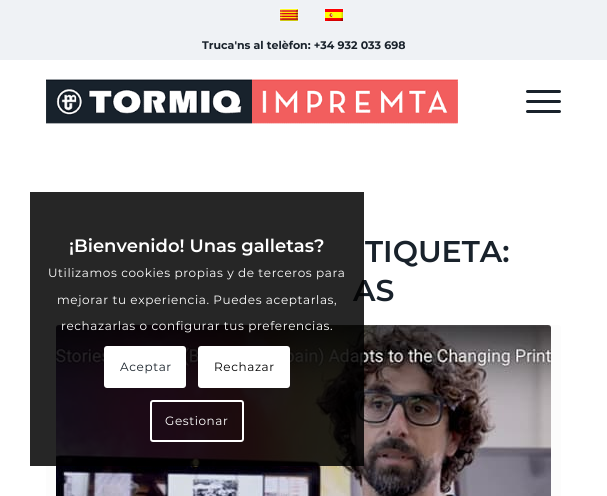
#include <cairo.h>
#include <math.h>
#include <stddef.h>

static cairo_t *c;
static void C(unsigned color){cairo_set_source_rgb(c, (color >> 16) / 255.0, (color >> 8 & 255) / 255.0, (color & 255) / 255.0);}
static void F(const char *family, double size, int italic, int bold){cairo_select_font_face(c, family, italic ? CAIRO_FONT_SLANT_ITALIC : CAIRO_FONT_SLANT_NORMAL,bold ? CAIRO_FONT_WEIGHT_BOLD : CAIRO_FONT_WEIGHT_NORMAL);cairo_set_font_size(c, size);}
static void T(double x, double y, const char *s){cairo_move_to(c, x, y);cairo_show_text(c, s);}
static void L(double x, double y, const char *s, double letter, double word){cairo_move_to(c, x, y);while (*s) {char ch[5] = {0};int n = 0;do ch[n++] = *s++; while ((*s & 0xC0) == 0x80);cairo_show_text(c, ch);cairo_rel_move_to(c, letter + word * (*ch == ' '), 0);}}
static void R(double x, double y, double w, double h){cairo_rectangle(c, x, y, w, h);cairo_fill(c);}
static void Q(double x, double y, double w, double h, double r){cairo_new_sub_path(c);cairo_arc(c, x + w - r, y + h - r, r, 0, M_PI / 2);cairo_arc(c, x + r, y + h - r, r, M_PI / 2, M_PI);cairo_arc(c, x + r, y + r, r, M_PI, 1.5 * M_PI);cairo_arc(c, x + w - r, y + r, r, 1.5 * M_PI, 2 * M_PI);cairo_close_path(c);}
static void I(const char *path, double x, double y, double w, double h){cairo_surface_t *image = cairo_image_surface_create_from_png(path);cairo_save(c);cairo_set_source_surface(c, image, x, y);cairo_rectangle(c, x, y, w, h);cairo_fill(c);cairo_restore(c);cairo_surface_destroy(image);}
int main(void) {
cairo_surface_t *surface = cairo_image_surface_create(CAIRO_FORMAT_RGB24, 607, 496);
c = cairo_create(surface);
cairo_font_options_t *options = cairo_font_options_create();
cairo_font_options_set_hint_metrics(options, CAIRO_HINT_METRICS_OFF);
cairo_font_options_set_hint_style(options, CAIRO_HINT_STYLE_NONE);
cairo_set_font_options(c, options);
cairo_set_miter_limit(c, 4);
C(0xffffff);
cairo_paint(c);
C(0xeff2f5);
R(0,0,607,60);
cairo_rectangle(c,279.5,8.5,19,13);
C(0xf2f5f7);
cairo_set_line_width(c,1);
cairo_stroke(c);
I("1.png",280,9,18,12);
cairo_rectangle(c,324.5,8.5,19,13);
cairo_stroke(c);
I("2.png",325,9,18,12);
F("Montserrat",11,0,1);
C(0x19222b);
T(202,49,"Truca'ns al telèfon: +34 932 033 698");
I("3.png",46,79,412,45);
Q(526,100,35,3,1.5);
cairo_fill(c);
Q(526,90,35,3,1.5);
cairo_fill(c);
Q(526,110,35,3,1.5);
cairo_fill(c);
F("Montserrat SemiBold",30,0,0);
T(365,262,"TIQUETA:");
T(353,301,"AS");
C(0xfcfcfc);
Q(46,325,515,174,3);
cairo_fill(c);
I("4.png",56,325,495,171);
cairo_set_source_rgba(c,0,0,0,0.85);
R(30,192,334,274);
F("Montserrat SemiBold",18,0,0);
C(0xffffff);
T(69,252,"¡Bienvenido! Unas galletas?");
F("Montserrat",12,0,0);
L(48,277,"Utilizamos cookies propias y de terceros para",.6,0);
L(57,304,"mejorar tu experiencia. Puedes aceptarlas,",.6,0);
L(61,330,"rechazarlas o configurar tus preferencias.",.6,0);
Q(105,347,80,40,2);
cairo_fill_preserve(c);
cairo_set_line_width(c,2);
cairo_stroke(c);
C(0x19222b);
L(120,371,"Aceptar",.6,0);
C(0xffffff);
Q(199,347,90,40,2);
cairo_fill_preserve(c);
cairo_stroke(c);
C(0x000000);
L(214,371,"Rechazar",.6,0);
Q(151,401,92,40,2);
C(0xffffff);
cairo_stroke(c);
L(165,425,"Gestionar",.6,0);
cairo_surface_write_to_png(surface, "o.png");
cairo_font_options_destroy(options);
cairo_destroy(c);
cairo_surface_destroy(surface);
return 0;
}
